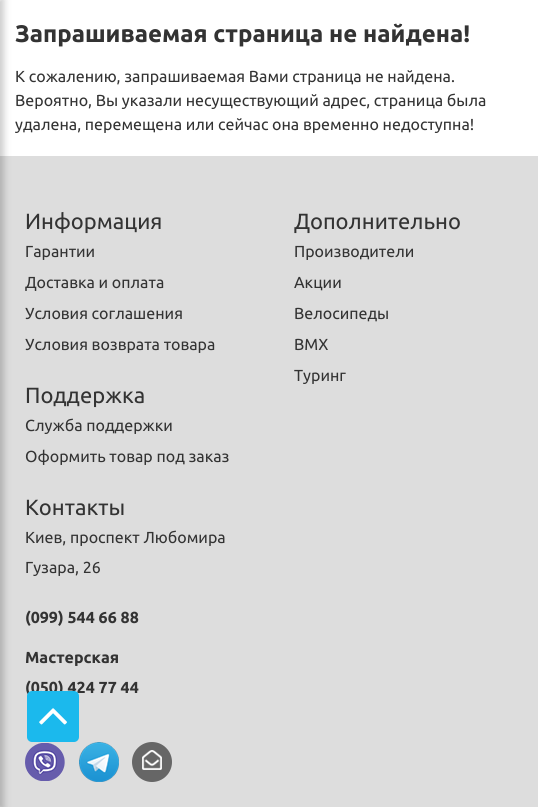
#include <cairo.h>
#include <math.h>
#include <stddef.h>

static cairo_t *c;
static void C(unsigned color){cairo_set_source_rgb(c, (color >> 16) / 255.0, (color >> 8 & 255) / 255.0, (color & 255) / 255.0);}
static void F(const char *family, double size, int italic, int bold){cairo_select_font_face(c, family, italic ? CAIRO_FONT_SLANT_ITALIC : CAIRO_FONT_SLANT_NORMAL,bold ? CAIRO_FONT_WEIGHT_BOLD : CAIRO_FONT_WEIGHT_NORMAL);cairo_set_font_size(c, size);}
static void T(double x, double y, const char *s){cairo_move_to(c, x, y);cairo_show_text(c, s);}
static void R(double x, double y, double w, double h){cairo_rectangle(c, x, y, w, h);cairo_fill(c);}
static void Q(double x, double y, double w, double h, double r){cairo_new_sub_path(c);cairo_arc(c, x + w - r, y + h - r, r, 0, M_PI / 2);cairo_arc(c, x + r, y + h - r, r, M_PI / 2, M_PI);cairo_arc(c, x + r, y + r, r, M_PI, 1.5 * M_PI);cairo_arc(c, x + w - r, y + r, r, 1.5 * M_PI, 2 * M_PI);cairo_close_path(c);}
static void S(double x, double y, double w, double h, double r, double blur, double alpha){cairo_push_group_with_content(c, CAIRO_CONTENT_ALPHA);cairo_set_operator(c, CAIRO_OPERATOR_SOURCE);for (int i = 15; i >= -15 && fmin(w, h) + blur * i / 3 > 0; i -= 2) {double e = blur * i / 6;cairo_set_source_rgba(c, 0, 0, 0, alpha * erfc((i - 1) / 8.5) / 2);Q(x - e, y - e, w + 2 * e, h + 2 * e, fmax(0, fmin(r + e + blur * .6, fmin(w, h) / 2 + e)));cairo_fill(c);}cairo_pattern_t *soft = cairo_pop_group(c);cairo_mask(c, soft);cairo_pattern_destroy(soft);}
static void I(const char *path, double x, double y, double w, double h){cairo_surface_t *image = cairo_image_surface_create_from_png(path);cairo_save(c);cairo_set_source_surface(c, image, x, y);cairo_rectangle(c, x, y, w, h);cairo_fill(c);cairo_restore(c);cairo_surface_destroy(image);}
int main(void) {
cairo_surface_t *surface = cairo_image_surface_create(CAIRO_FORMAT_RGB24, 538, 807);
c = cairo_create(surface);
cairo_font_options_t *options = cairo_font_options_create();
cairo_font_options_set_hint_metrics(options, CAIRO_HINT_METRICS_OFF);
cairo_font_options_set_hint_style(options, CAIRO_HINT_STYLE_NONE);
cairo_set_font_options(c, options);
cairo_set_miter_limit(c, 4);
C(0xffffff);
cairo_paint(c);
C(0xdddddd);
R(0,156,538,651);
C(0x000000);
S(-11,-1,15,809,0,3.5,.2);
F("Ubuntu",24,0,1);
C(0x333333);
T(15,42,"Запрашиваемая страница не найдена!");
F("Ubuntu",16,0,0);
T(15,82,"К сожалению, запрашиваемая Вами страница не найдена.");
T(15,106,"Вероятно, Вы указали несуществующий адрес, страница была");
T(15,130,"удалена, перемещена или сейчас она временно недоступна!");
F("Ubuntu",22,0,0);
T(25,229,"Информация");
F("Ubuntu",16,0,0);
T(25,257,"Гарантии");
T(25,288,"Доставка и оплата");
T(25,319,"Условия соглашения");
T(25,350,"Условия возврата товара");
F("Ubuntu",22,0,0);
T(25,403,"Поддержка");
F("Ubuntu",16,0,0);
T(25,431,"Служба поддержки");
T(25,462,"Оформить товар под заказ");
F("Ubuntu",22,0,0);
T(294,229,"Дополнительно");
F("Ubuntu",16,0,0);
T(294,257,"Производители");
T(294,288,"Акции");
T(294,319,"Велосипеды");
T(294,350,"BMX");
T(294,381,"Туринг");
F("Ubuntu",22,0,0);
T(25,515,"Контакты");
F("Ubuntu",16,0,0);
T(25,543,"Киев, проспект Любомира");
T(25,573,"Гузара, 26");
F("Ubuntu",16,0,1);
T(25,623,"(099) 544 66 88");
T(25,663,"Мастерская");
T(25,693,"(050) 424 77 44");
I("1.png",25,743,40,38);
I("2.png",79,742,40,40);
I("3.png",132,742,40,40);
C(0x1bb9ed);
Q(27,691,52,51,5);
cairo_fill(c);
I("4.png",39,708,28,17);
cairo_surface_write_to_png(surface, "o.png");
cairo_font_options_destroy(options);
cairo_destroy(c);
cairo_surface_destroy(surface);
return 0;
}
